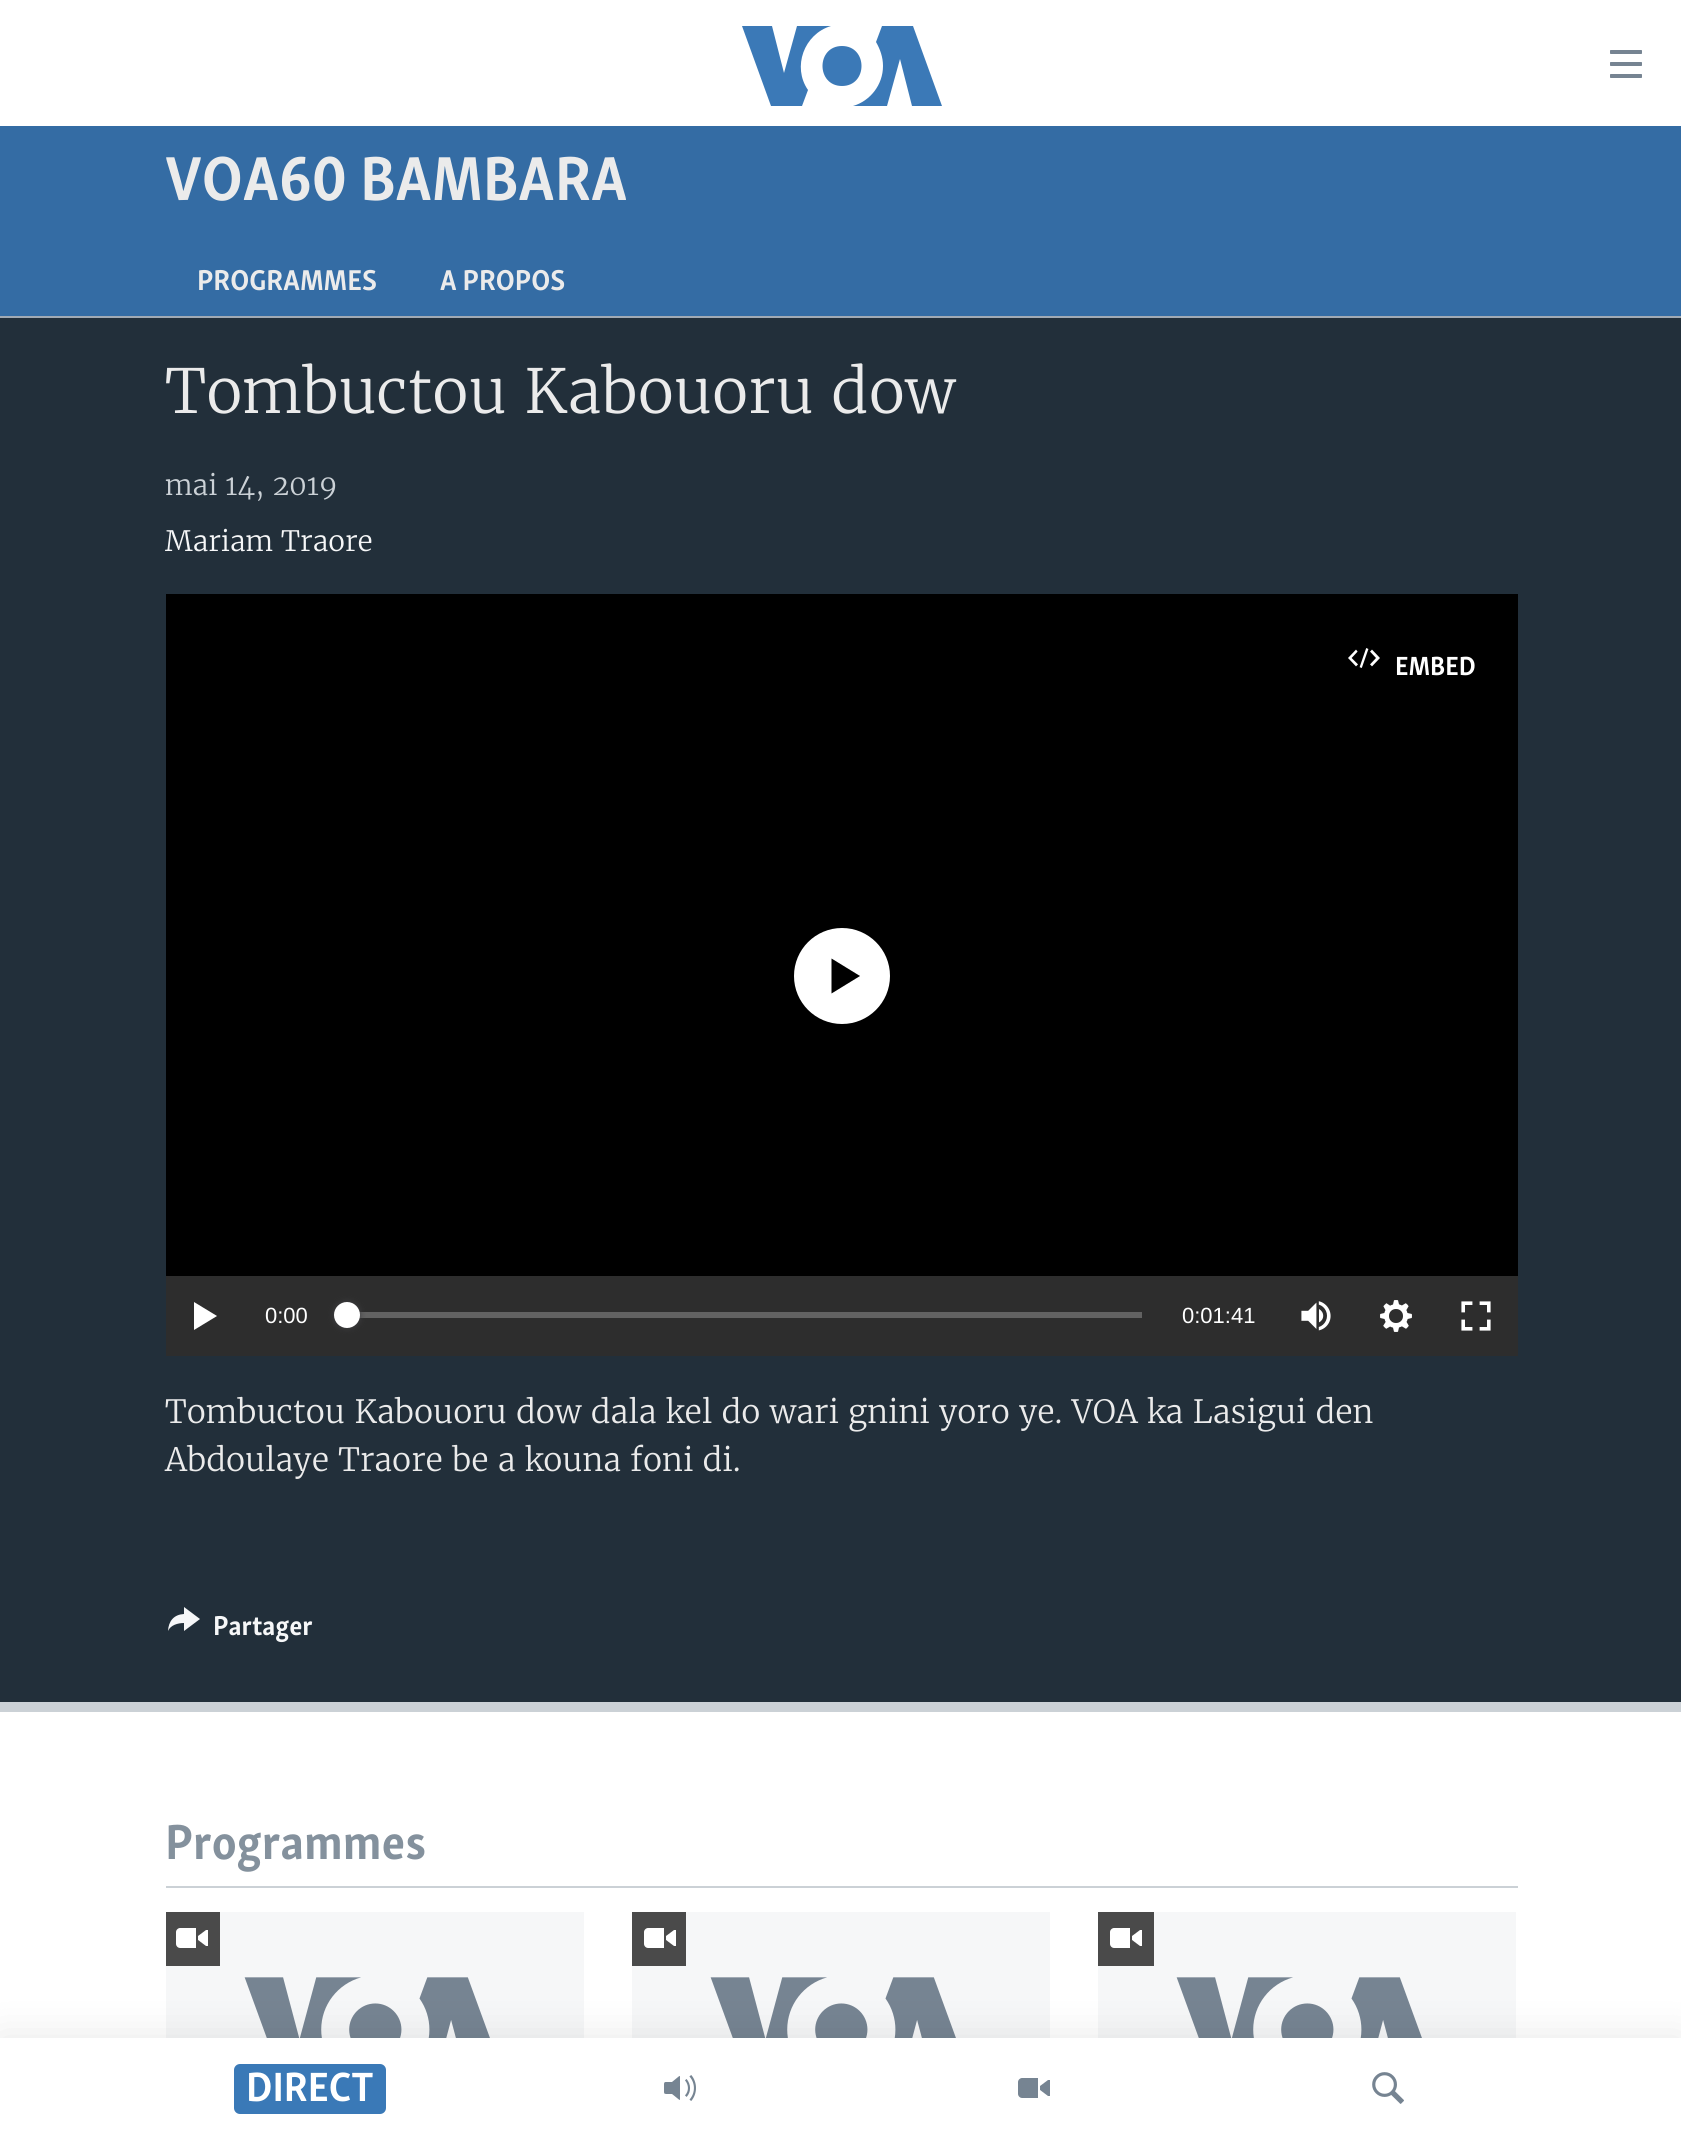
#include <cairo.h>
#include <math.h>
#include <stddef.h>

static cairo_t *c;
static void C(unsigned color){cairo_set_source_rgb(c, (color >> 16) / 255.0, (color >> 8 & 255) / 255.0, (color & 255) / 255.0);}
static void F(const char *family, double size, int italic, int bold){cairo_select_font_face(c, family, italic ? CAIRO_FONT_SLANT_ITALIC : CAIRO_FONT_SLANT_NORMAL,bold ? CAIRO_FONT_WEIGHT_BOLD : CAIRO_FONT_WEIGHT_NORMAL);cairo_set_font_size(c, size);}
static void T(double x, double y, const char *s){cairo_move_to(c, x, y);cairo_show_text(c, s);}
static void R(double x, double y, double w, double h){cairo_rectangle(c, x, y, w, h);cairo_fill(c);}
static void Q(double x, double y, double w, double h, double r){cairo_new_sub_path(c);cairo_arc(c, x + w - r, y + h - r, r, 0, M_PI / 2);cairo_arc(c, x + r, y + h - r, r, M_PI / 2, M_PI);cairo_arc(c, x + r, y + r, r, M_PI, 1.5 * M_PI);cairo_arc(c, x + w - r, y + r, r, 1.5 * M_PI, 2 * M_PI);cairo_close_path(c);}
static void S(double x, double y, double w, double h, double r, double blur, double alpha){cairo_push_group_with_content(c, CAIRO_CONTENT_ALPHA);cairo_set_operator(c, CAIRO_OPERATOR_SOURCE);for (int i = 15; i >= -15 && fmin(w, h) + blur * i / 3 > 0; i -= 2) {double e = blur * i / 6;cairo_set_source_rgba(c, 0, 0, 0, alpha * erfc((i - 1) / 8.5) / 2);Q(x - e, y - e, w + 2 * e, h + 2 * e, fmax(0, fmin(r + e + blur * .6, fmin(w, h) / 2 + e)));cairo_fill(c);}cairo_pattern_t *soft = cairo_pop_group(c);cairo_mask(c, soft);cairo_pattern_destroy(soft);}
static void I(const char *path, double x, double y, double w, double h){cairo_surface_t *image = cairo_image_surface_create_from_png(path);cairo_save(c);cairo_set_source_surface(c, image, x, y);cairo_rectangle(c, x, y, w, h);cairo_fill(c);cairo_restore(c);cairo_surface_destroy(image);}
int main(void) {
cairo_surface_t *surface = cairo_image_surface_create(CAIRO_FORMAT_RGB24, 1681, 2137);
c = cairo_create(surface);
cairo_font_options_t *options = cairo_font_options_create();
cairo_font_options_set_hint_metrics(options, CAIRO_HINT_METRICS_OFF);
cairo_font_options_set_hint_style(options, CAIRO_HINT_STYLE_NONE);
cairo_set_font_options(c, options);
cairo_set_miter_limit(c, 4);
C(0xffffff);
cairo_paint(c);
C(0x346ca4);
R(0,126,1681,190);
F("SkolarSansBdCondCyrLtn",63.75,0,1);
C(0xebebeb);
T(165,200,"VOA60 BAMBARA");
F("SkolarSansBdCondCyrLtn",29.5,0,1);
T(197,290,"PROGRAMMES");
T(440,290,"A PROPOS");
C(0x222f3a);
R(0,318,1681,1384);
C(0xa1aab4);
R(0,316,1681,2);
C(0xcbd1d6);
R(0,1702,1681,10);
F("Merriweather Light",60.75,0,0);
C(0xebebeb);
T(165,413,"Tombuctou Kabouoru dow");
F("Merriweather Light",28,0,0);
C(0xcbd1d6);
T(165,495,"mai 14, 2019");
C(0xf6f7f8);
T(165,551,"Mariam Traore");
C(0x000000);
R(166,594,1352,682);
I("1.png",1348,648,32,20);
F("SkolarSansBdCondCyrLtn",27,0,1);
C(0xffffff);
T(1395,675,"EMBED");
cairo_new_path(c);
cairo_arc(c,842,976,48,0,2 * M_PI);
cairo_fill(c);
C(0x000000);
cairo_new_path(c);
cairo_move_to(c,831.5,993.5);
cairo_line_to(c,860,976);
cairo_line_to(c,831.5,958.5);
cairo_close_path(c);
cairo_fill(c);
C(0x2d2d2d);
R(166,1276,1352,80);
C(0xffffff);
cairo_new_path(c);
cairo_move_to(c,194,1330);
cairo_line_to(c,217,1316);
cairo_line_to(c,194,1302);
cairo_close_path(c);
cairo_fill(c);
F("Liberation Sans",22,0,0);
T(265,1323,"0:00");
C(0x626262);
R(359,1312,783,6);
C(0x414144);
S(334,1302,26,26,13,3,1);
C(0xffffff);
cairo_arc(c,347,1315,13,0,2 * M_PI);
cairo_fill(c);
T(1182,1323,"0:01:41");
I("2.png",1301,1301,30,30);
I("3.png",1380,1300,32,32);
I("4.png",1461,1301,30,30);
F("Merriweather Light",32,0,0);
C(0xebebeb);
T(165,1423,"Tombuctou Kabouoru dow dala kel do wari gnini yoro ye. VOA ka Lasigui den");
T(165,1471,"Abdoulaye Traore be a kouna foni di.");
C(0xf6f7f8);
cairo_new_path(c);
cairo_move_to(c,168,1631);
cairo_curve_to(c,168.5,1621,174,1614.5,184,1614);
cairo_line_to(c,184,1607);
cairo_line_to(c,200,1619);
cairo_line_to(c,184,1631);
cairo_line_to(c,184,1623);
cairo_curve_to(c,178,1623,170.5,1625,168,1631);
cairo_close_path(c);
cairo_fill(c);
F("SkolarSansBdCondCyrLtn",28,0,1);
T(213,1635,"Partager");
C(0xcbd1d6);
R(166,1886,1352,2);
F("SkolarSansBdCondCyrLtn",50.5,0,1);
C(0x84919d);
T(165,1859,"Programmes");
C(0xf6f7f8);
R(166,1912,418,126);
I("5.png",244,1977,246,61);
C(0x4a4a4a);
R(166,1912,54,54);
I("6.png",176,1928,32,20);
C(0xf6f7f8);
R(632,1912,418,126);
I("5.png",710,1977,246,61);
C(0x4a4a4a);
R(632,1912,54,54);
I("6.png",644,1928,32,20);
C(0xf6f7f8);
R(1098,1912,418,126);
I("5.png",1176,1977,246,61);
C(0x4a4a4a);
R(1098,1912,56,54);
I("6.png",1110,1928,32,20);
C(0x3b79b7);
cairo_new_path(c);
cairo_move_to(c,808,90);
cairo_line_to(c,802,106);
cairo_line_to(c,771,106);
cairo_line_to(c,742,26);
cairo_line_to(c,772,26);
cairo_line_to(c,784,73);
cairo_line_to(c,797,26);
cairo_line_to(c,831,26);
cairo_curve_to(c,804,34,792,67,808,90);
cairo_close_path(c);
cairo_move_to(c,842,46);
cairo_curve_to(c,816,46,816,86,842,86);
cairo_curve_to(c,868,86,868,46,842,46);
cairo_close_path(c);
cairo_move_to(c,883,66);
cairo_curve_to(c,883,85,870,101,853,106);
cairo_line_to(c,887,106);
cairo_line_to(c,900,59);
cairo_line_to(c,912,106);
cairo_line_to(c,942,106);
cairo_line_to(c,913,26);
cairo_line_to(c,882,26);
cairo_line_to(c,876,42);
cairo_curve_to(c,880,49,883,57,883,66);
cairo_close_path(c);
cairo_fill(c);
I("7.png",1610,50,32,28);
C(0x000000);
S(0,2038,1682,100,0,20,.1);
C(0xffffff);
R(0,2038,1681,99);
C(0x3a79b7);
Q(234,2064,152,50,6);
cairo_fill(c);
F("SkolarSansBdCondCyrLtn",42,0,1);
C(0xffffff);
T(246,2101,"DIRECT");
I("8.png",664,2075,32,26);
I("9.png",1018,2078,32,20);
I("10.png",1372,2072,32,32);
cairo_surface_write_to_png(surface, "o.png");
cairo_font_options_destroy(options);
cairo_destroy(c);
cairo_surface_destroy(surface);
return 0;
}
